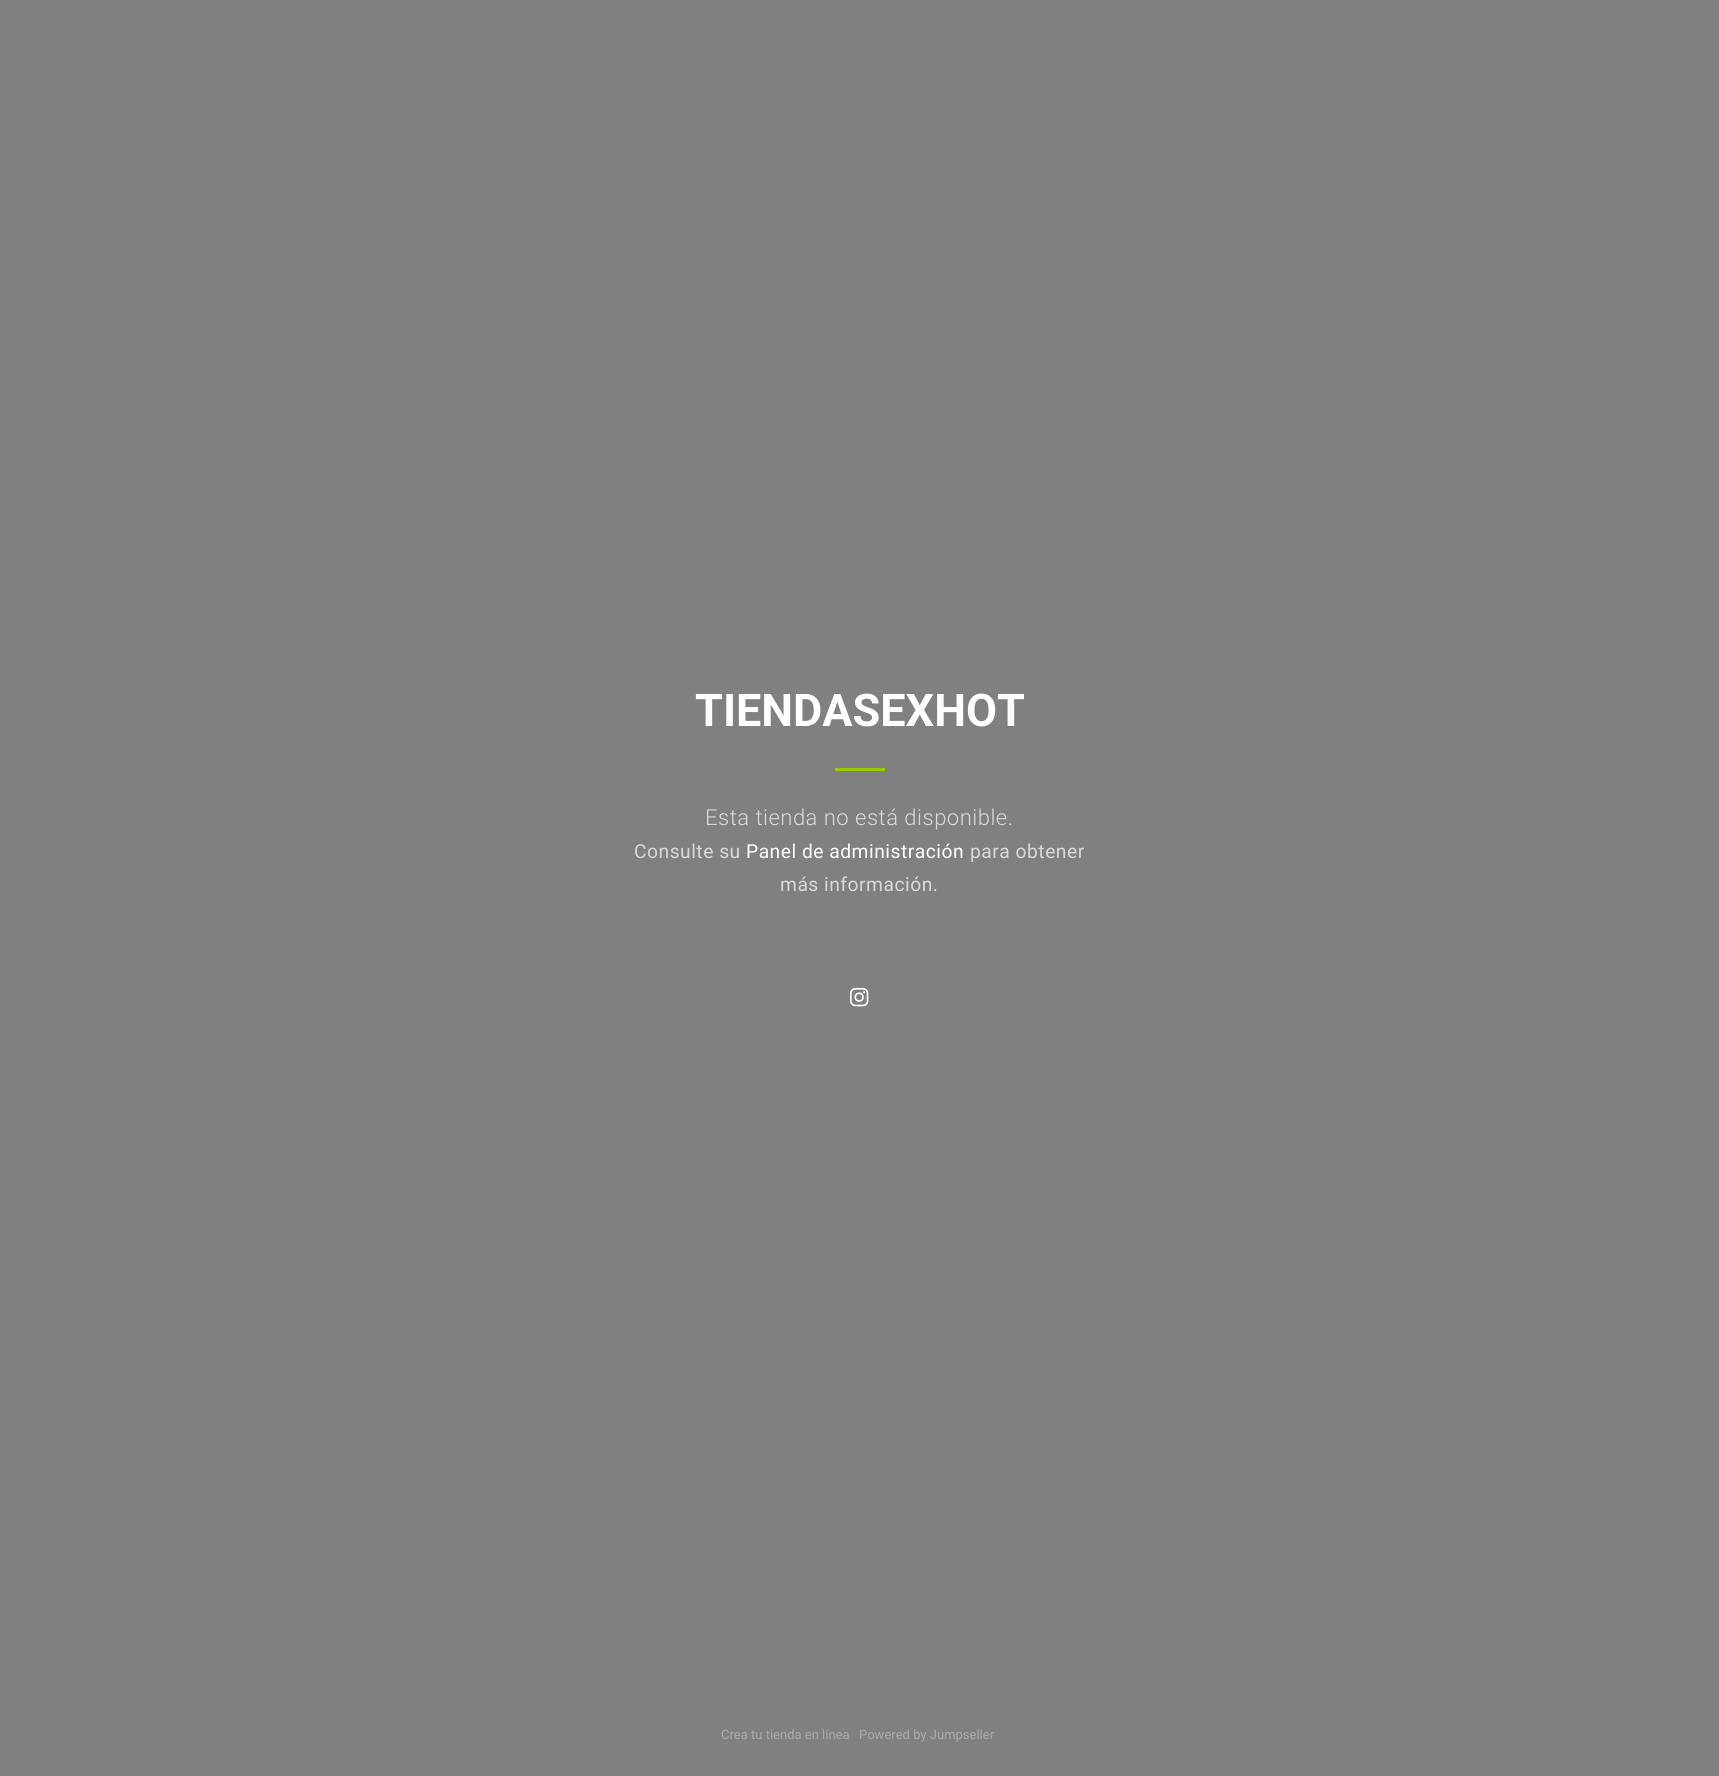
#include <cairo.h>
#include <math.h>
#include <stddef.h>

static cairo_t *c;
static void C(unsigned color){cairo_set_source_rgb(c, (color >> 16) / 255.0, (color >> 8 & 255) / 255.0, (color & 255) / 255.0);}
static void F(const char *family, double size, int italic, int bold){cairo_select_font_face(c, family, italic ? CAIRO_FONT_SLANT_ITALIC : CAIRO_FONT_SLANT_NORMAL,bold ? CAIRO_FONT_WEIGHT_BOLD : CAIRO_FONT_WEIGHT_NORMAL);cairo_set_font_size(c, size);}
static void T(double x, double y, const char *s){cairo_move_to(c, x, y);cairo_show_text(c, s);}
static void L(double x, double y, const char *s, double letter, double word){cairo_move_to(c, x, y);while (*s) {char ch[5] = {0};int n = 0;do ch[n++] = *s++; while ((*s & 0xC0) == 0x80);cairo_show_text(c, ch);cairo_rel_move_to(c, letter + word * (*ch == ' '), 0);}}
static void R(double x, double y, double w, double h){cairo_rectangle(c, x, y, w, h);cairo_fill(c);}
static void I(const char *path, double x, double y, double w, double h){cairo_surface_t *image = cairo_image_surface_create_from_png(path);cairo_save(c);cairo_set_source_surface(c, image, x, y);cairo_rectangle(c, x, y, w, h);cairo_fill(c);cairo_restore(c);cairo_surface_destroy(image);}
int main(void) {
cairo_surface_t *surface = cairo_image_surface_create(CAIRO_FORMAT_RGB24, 1719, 1776);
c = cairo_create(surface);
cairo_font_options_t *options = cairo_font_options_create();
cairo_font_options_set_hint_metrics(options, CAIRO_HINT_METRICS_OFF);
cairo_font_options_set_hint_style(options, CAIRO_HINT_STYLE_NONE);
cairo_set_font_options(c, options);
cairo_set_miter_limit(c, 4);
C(0x808080);
cairo_paint(c);
F("Roboto",45,0,1);
C(0xffffff);
T(695,726,"TIENDASEXHOT");
C(0x99cc00);
R(835,768,50,3);
F("Roboto Light",22,0,0);
C(0xd9d9d9);
L(705,825,"Esta tienda no está disponible.",.5,0);
F("Roboto",19.25,0,0);
L(634,858,"Consulte su",.5,0);
C(0xffffff);
L(746,858,"Panel de administración",.5,0);
C(0xd9d9d9);
L(970,858,"para obtener",.5,0);
L(780,891,"más información.",.5,0);
I("1.png",850,987,19,20);
F("Roboto",13,0,0);
C(0xaaaaaa);
T(721,1739,"Crea tu tienda en línea");
T(859,1739,"Powered by Jumpseller");
cairo_surface_write_to_png(surface, "o.png");
cairo_font_options_destroy(options);
cairo_destroy(c);
cairo_surface_destroy(surface);
return 0;
}
